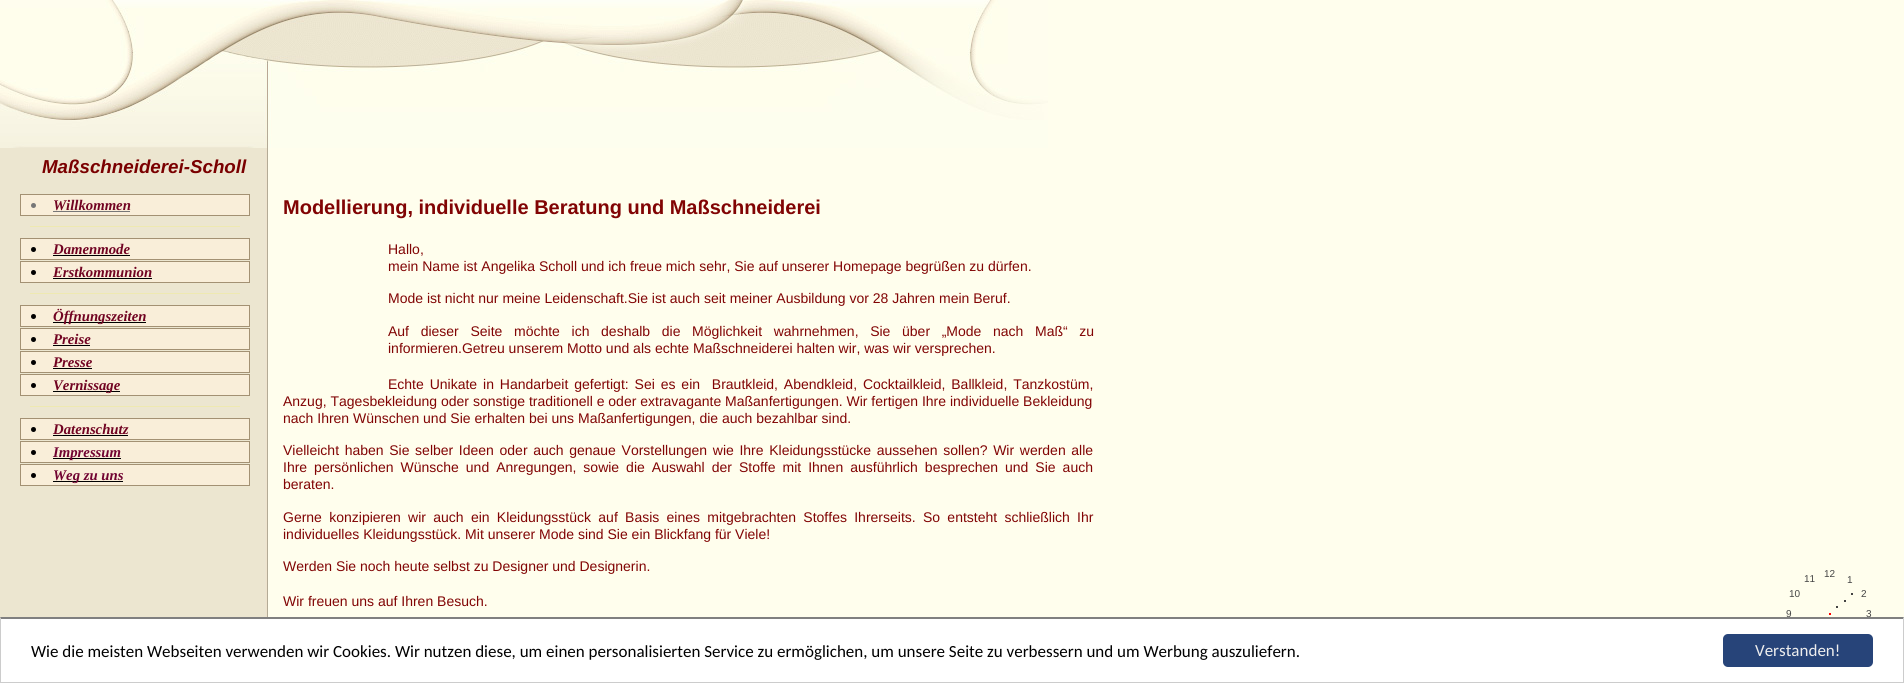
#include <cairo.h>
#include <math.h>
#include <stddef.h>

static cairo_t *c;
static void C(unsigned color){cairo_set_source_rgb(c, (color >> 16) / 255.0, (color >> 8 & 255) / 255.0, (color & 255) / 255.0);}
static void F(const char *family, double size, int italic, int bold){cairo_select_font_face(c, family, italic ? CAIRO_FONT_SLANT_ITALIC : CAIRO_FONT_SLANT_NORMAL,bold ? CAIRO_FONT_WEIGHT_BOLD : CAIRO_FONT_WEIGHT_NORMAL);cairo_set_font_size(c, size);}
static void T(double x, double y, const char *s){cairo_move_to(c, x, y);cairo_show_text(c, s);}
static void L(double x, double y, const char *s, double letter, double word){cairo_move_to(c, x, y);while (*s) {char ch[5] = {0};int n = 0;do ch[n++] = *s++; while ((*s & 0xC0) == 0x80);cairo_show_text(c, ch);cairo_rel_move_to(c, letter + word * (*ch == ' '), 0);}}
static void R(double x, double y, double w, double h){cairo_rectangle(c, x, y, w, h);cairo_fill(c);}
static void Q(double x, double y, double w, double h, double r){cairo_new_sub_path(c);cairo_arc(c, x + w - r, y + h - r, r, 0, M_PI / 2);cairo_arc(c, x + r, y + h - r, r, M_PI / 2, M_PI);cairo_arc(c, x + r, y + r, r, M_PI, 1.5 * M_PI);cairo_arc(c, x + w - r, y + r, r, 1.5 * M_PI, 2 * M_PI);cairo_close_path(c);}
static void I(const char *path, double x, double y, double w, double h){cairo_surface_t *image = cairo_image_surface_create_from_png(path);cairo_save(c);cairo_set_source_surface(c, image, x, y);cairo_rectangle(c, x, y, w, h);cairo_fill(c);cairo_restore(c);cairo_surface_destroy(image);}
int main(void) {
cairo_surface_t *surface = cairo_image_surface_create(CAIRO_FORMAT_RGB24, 1904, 683);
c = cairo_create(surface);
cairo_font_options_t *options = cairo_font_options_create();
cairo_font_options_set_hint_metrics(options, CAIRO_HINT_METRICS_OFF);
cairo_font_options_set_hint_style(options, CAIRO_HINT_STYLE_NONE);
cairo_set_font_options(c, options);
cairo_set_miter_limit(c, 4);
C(0xfffeed);
cairo_paint(c);
I("1.png",0,0,1048,148);
I("2.png",0,148,268,471);
F("Liberation Sans",18.75,1,1);
C(0x7a0000);
T(42,173,"Maßschneiderei-Scholl");
C(0xf9eed9);
cairo_rectangle(c,20.5,194.5,229,21);
cairo_fill_preserve(c);
C(0xa39173);
cairo_set_line_width(c,1);
cairo_stroke(c);
C(0x777777);
cairo_arc(c,33.5,205.5,2.5,0,2 * M_PI);
cairo_fill(c);
F("Liberation Serif",14.75,1,1);
C(0x710322);
T(53,210,"Willkommen");
C(0x777777);
R(53,211,77,1);
C(0xeee9b1);
R(30,226,210,1);
C(0xf9eed9);
cairo_rectangle(c,20.5,238.5,229,21);
cairo_fill_preserve(c);
C(0xa39173);
cairo_stroke(c);
C(0x000000);
cairo_arc(c,33.5,249.5,2.5,0,2 * M_PI);
cairo_fill(c);
C(0x710322);
T(53,254,"Damenmode");
C(0x000000);
R(53,255,77,1);
C(0xf9eed9);
cairo_rectangle(c,20.5,261.5,229,21);
cairo_fill_preserve(c);
C(0xa39173);
cairo_stroke(c);
C(0x000000);
cairo_arc(c,33.5,272.5,2.5,0,2 * M_PI);
cairo_fill(c);
C(0x710322);
T(53,277,"Erstkommunion");
C(0x000000);
R(53,278,99,1);
C(0xeee9b1);
R(30,293,210,1);
C(0xf9eed9);
cairo_rectangle(c,20.5,305.5,229,21);
cairo_fill_preserve(c);
C(0xa39173);
cairo_stroke(c);
C(0x000000);
cairo_arc(c,33.5,316.5,2.5,0,2 * M_PI);
cairo_fill(c);
R(53,322,93,1);
C(0x710322);
T(53,321,"Öffnungszeiten");
C(0xf9eed9);
cairo_rectangle(c,20.5,328.5,229,21);
cairo_fill_preserve(c);
C(0xa39173);
cairo_stroke(c);
C(0x000000);
cairo_arc(c,33.5,339.5,2.5,0,2 * M_PI);
cairo_fill(c);
C(0x710322);
T(53,344,"Preise");
C(0x000000);
R(53,345,37,1);
C(0xf9eed9);
cairo_rectangle(c,20.5,351.5,229,21);
cairo_fill_preserve(c);
C(0xa39173);
cairo_stroke(c);
C(0x000000);
cairo_arc(c,33.5,362.5,2.5,0,2 * M_PI);
cairo_fill(c);
C(0x710322);
T(53,367,"Presse");
C(0x000000);
R(53,368,39,1);
C(0xf9eed9);
cairo_rectangle(c,20.5,374.5,229,21);
cairo_fill_preserve(c);
C(0xa39173);
cairo_stroke(c);
C(0x000000);
cairo_arc(c,33.5,385.5,2.5,0,2 * M_PI);
cairo_fill(c);
R(53,391,67,1);
C(0x710322);
T(53,390,"Vernissage");
C(0xeee9b1);
R(30,406,210,1);
C(0xf9eed9);
cairo_rectangle(c,20.5,418.5,229,21);
cairo_fill_preserve(c);
C(0xa39173);
cairo_stroke(c);
C(0x000000);
cairo_arc(c,33.5,429.5,2.5,0,2 * M_PI);
cairo_fill(c);
C(0x710322);
T(53,434,"Datenschutz");
C(0x000000);
R(53,435,75,1);
C(0xf9eed9);
cairo_rectangle(c,20.5,441.5,229,21);
cairo_fill_preserve(c);
C(0xa39173);
cairo_stroke(c);
C(0x000000);
cairo_arc(c,33.5,452.5,2.5,0,2 * M_PI);
cairo_fill(c);
R(53,458,68,1);
C(0x710332);
T(53,457,"Impressum");
C(0xf9eed9);
cairo_rectangle(c,20.5,464.5,229,21);
cairo_fill_preserve(c);
C(0xa39173);
cairo_stroke(c);
C(0x000000);
cairo_arc(c,33.5,475.5,2.5,0,2 * M_PI);
cairo_fill(c);
R(53,481,70,1);
C(0x710332);
T(53,480,"Weg zu uns");
F("Liberation Sans",20,0,1);
C(0x810404);
T(283,214,"Modellierung, individuelle Beratung und Maßschneiderei");
F("Liberation Sans",14,0,0);
T(388,254,"Hallo,");
T(388,271,"mein Name ist Angelika Scholl und ich freue mich sehr, Sie auf unserer Homepage begrüßen zu dürfen.");
T(388,303,"Mode ist nicht nur meine Leidenschaft.Sie ist auch seit meiner Ausbildung vor 28 Jahren mein Beruf.");
L(388,336,"Auf dieser Seite möchte ich deshalb die Möglichkeit wahrnehmen, Sie über „Mode nach Maß“ zu",0,7.75);
T(388,353,"informieren.Getreu unserem Motto und als echte Maßschneiderei halten wir, was wir versprechen.");
L(388,389,"Echte Unikate in Handarbeit gefertigt: Sei es ein  Brautkleid, Abendkleid, Cocktailkleid, Ballkleid, Tanzkostüm,",0,2);
T(283,406,"Anzug, Tagesbekleidung oder sonstige traditionell e oder extravagante Maßanfertigungen. Wir fertigen Ihre individuelle Bekleidung");
T(283,423,"nach Ihren Wünschen und Sie erhalten bei uns Maßanfertigungen, die auch bezahlbar sind.");
L(283,455,"Vielleicht haben Sie selber Ideen oder auch genaue Vorstellungen wie Ihre Kleidungsstücke aussehen sollen? Wir werden alle",0,1.75);
L(283,472,"Ihre persönlichen Wünsche und Anregungen, sowie die Auswahl der Stoffe mit Ihnen ausführlich besprechen und Sie auch",0,3.1);
T(283,489,"beraten.");
L(283,522,"Gerne konzipieren wir auch ein Kleidungsstück auf Basis eines mitgebrachten Stoffes Ihrerseits. So entsteht schließlich Ihr",0,3.4);
T(283,539,"individuelles Kleidungsstück. Mit unserer Mode sind Sie ein Blickfang für Viele!");
T(283,571,"Werden Sie noch heute selbst zu Designer und Designerin.");
T(283,606,"Wir freuen uns auf Ihren Besuch.");
F("Liberation Sans",10,0,0);
C(0x444444);
T(1824,577,"12");
T(1804,582,"11");
T(1847,583,"1");
T(1789,597,"10");
R(1851,593,2,2);
T(1861,597,"2");
R(1844,600,2,2);
R(1836,606,2,2);
T(1786,617,"9");
C(0xff0000);
R(1829,613,2,2);
C(0x444444);
T(1866,617,"3");
C(0xffffff);
R(1,619,1902,63);
C(0x808080);
cairo_new_path(c);
cairo_move_to(c,0,617);
cairo_line_to(c,1904,617);
cairo_line_to(c,1903,619);
cairo_line_to(c,1,619);
cairo_close_path(c);
cairo_fill(c);
C(0xcccccc);
cairo_new_path(c);
cairo_move_to(c,1904,617);
cairo_line_to(c,1904,683);
cairo_line_to(c,1903,682);
cairo_line_to(c,1903,619);
cairo_close_path(c);
cairo_fill(c);
R(0,682,1904,1);
cairo_new_path(c);
cairo_move_to(c,0,683);
cairo_line_to(c,0,617);
cairo_line_to(c,1,619);
cairo_line_to(c,1,682);
cairo_close_path(c);
cairo_fill(c);
F("Carlito",17,0,0);
C(0x000000);
T(31,657,"Wie die meisten Webseiten verwenden wir Cookies. Wir nutzen diese, um einen personalisierten Service zu ermöglichen, um unsere Seite zu verbessern und um Werbung auszuliefern.");
C(0x274479);
Q(1723,634,150,33,5);
cairo_fill(c);
C(0xeeeeee);
T(1755,656,"Verstanden!");
cairo_surface_write_to_png(surface, "o.png");
cairo_font_options_destroy(options);
cairo_destroy(c);
cairo_surface_destroy(surface);
return 0;
}
